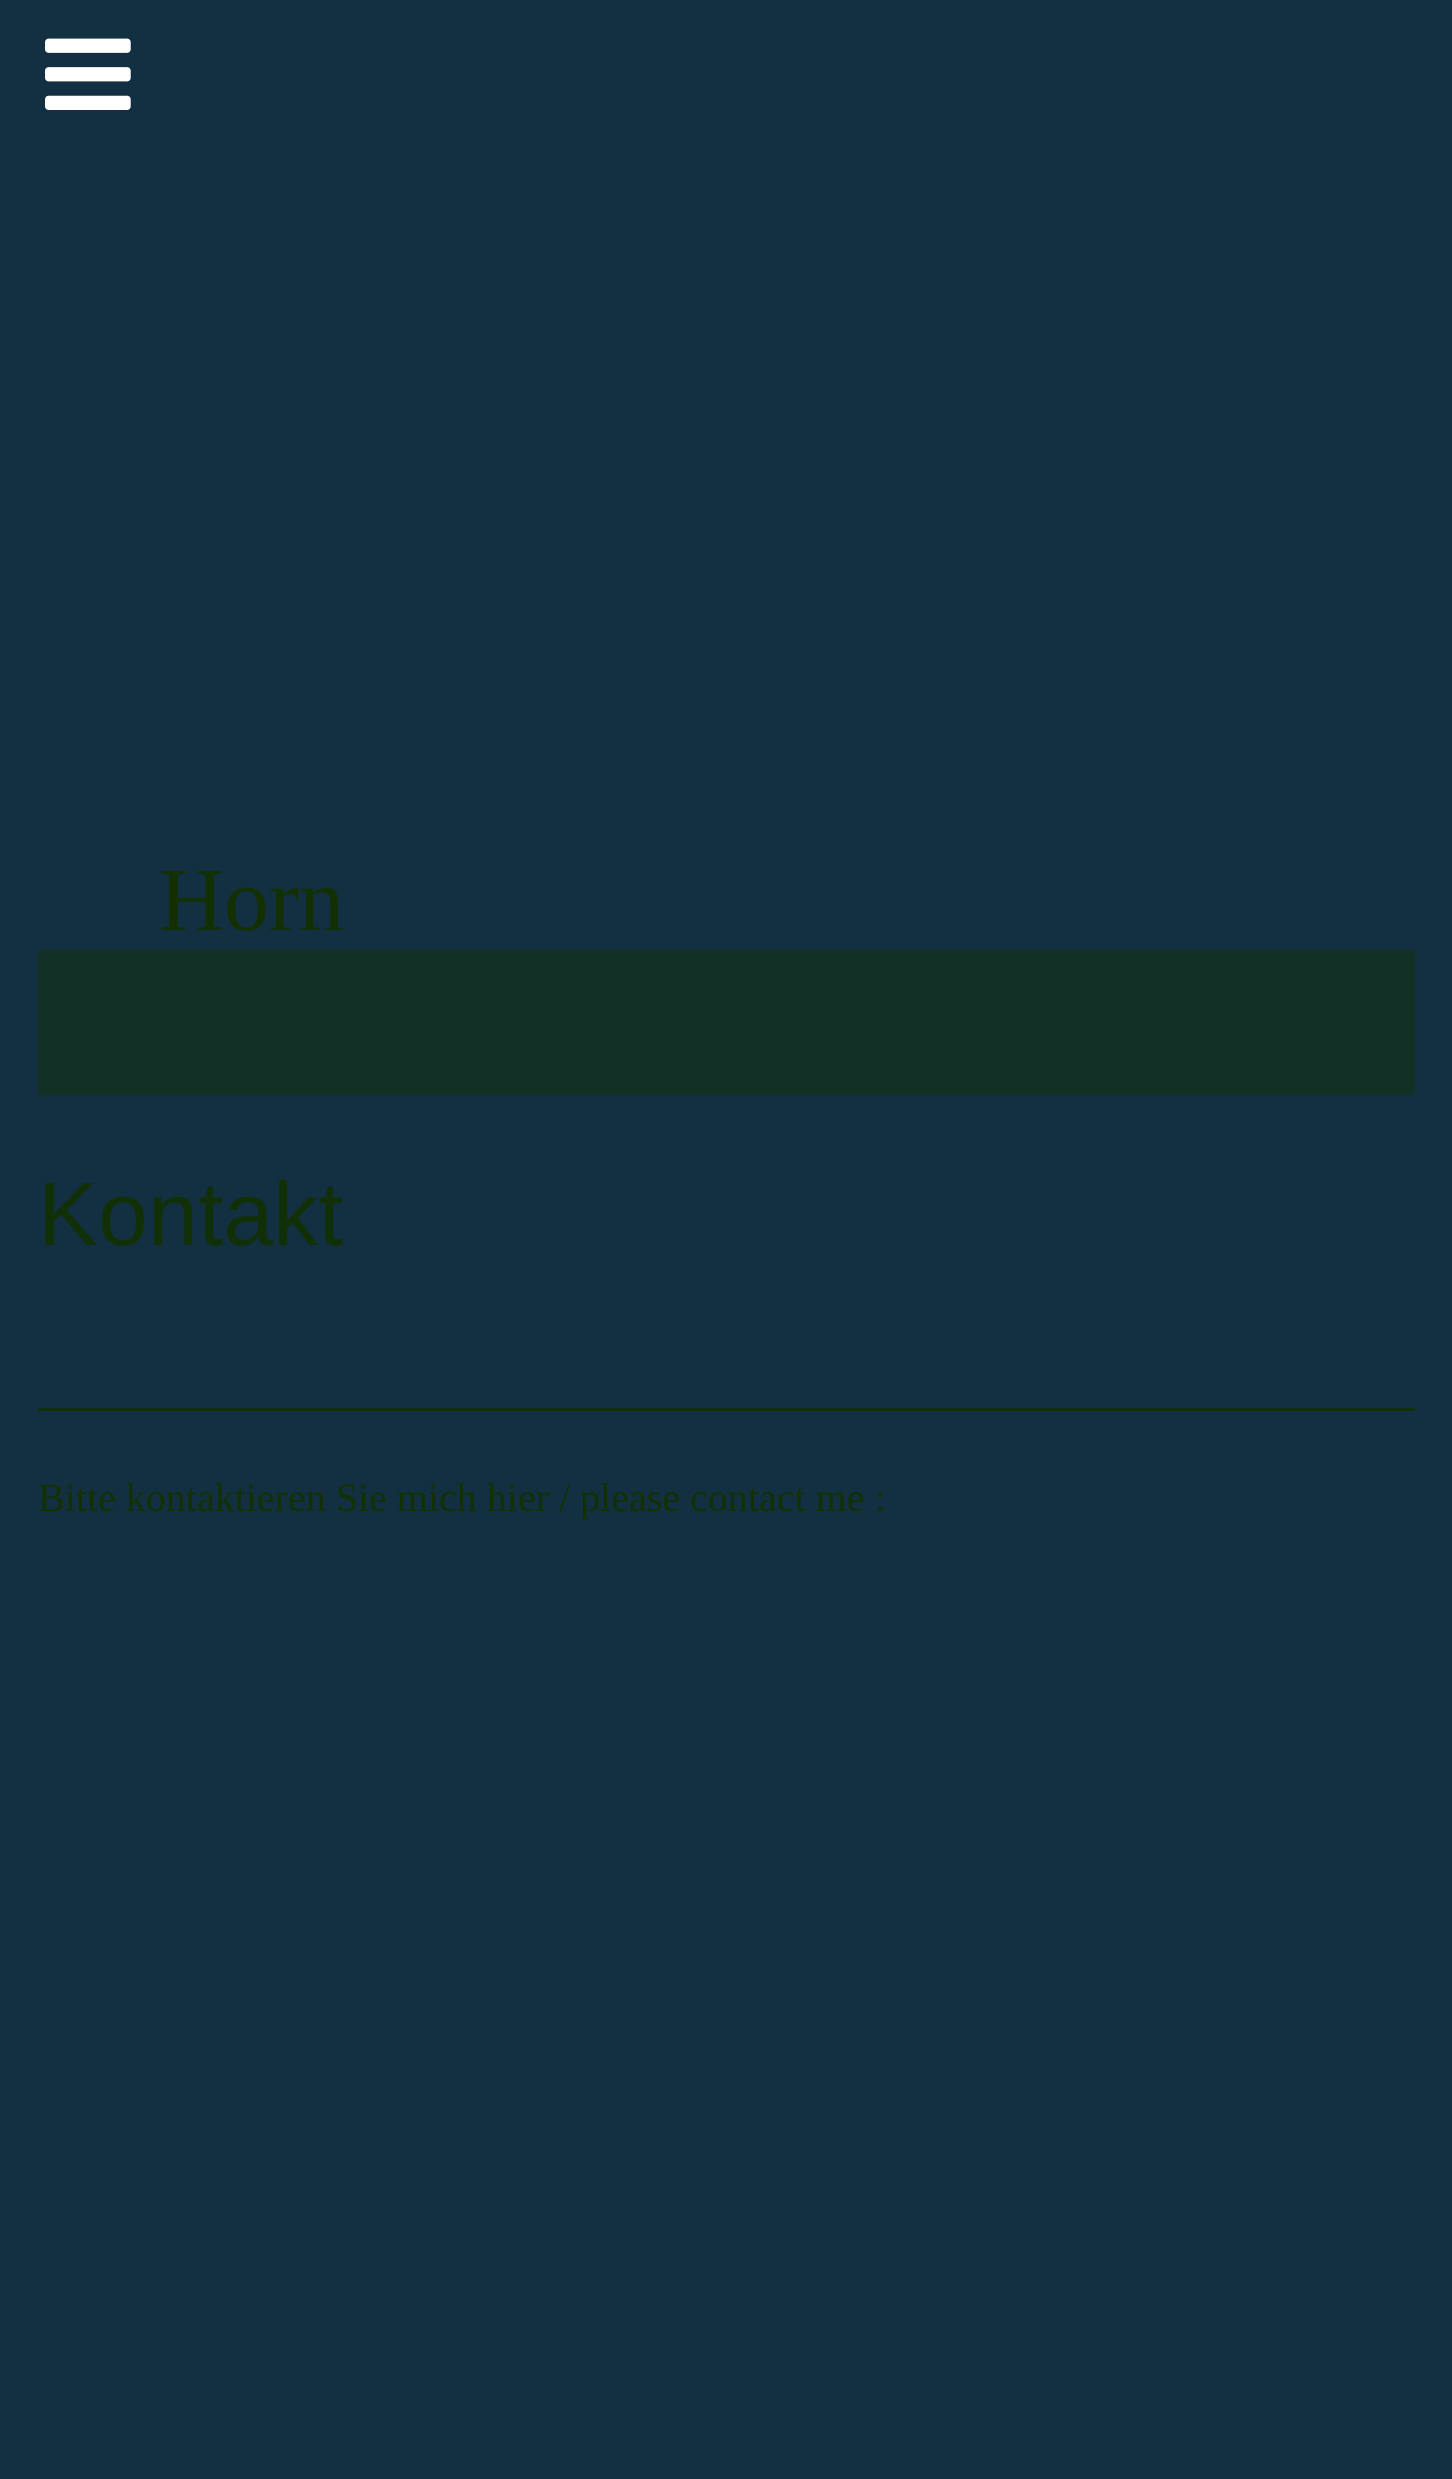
#include <cairo.h>
#include <math.h>
#include <stddef.h>

static cairo_t *c;
static void C(unsigned color){cairo_set_source_rgb(c, (color >> 16) / 255.0, (color >> 8 & 255) / 255.0, (color & 255) / 255.0);}
static void F(const char *family, double size, int italic, int bold){cairo_select_font_face(c, family, italic ? CAIRO_FONT_SLANT_ITALIC : CAIRO_FONT_SLANT_NORMAL,bold ? CAIRO_FONT_WEIGHT_BOLD : CAIRO_FONT_WEIGHT_NORMAL);cairo_set_font_size(c, size);}
static void T(double x, double y, const char *s){cairo_move_to(c, x, y);cairo_show_text(c, s);}
static void R(double x, double y, double w, double h){cairo_rectangle(c, x, y, w, h);cairo_fill(c);}
static void I(const char *path, double x, double y, double w, double h){cairo_surface_t *image = cairo_image_surface_create_from_png(path);cairo_save(c);cairo_set_source_surface(c, image, x, y);cairo_rectangle(c, x, y, w, h);cairo_fill(c);cairo_restore(c);cairo_surface_destroy(image);}
int main(void) {
cairo_surface_t *surface = cairo_image_surface_create(CAIRO_FORMAT_RGB24, 1452, 2479);
c = cairo_create(surface);
cairo_font_options_t *options = cairo_font_options_create();
cairo_font_options_set_hint_metrics(options, CAIRO_HINT_METRICS_OFF);
cairo_font_options_set_hint_style(options, CAIRO_HINT_STYLE_NONE);
cairo_set_font_options(c, options);
cairo_set_miter_limit(c, 4);
C(0x123041);
cairo_paint(c);
I("1.png",45,38,86,72);
F("Liberation Serif",90,0,0);
C(0x123002);
T(159,930,"Horn");
C(0x123025);
R(38,950,1377,145);
F("Liberation Sans",90,0,0);
C(0x123008);
T(38,1245,"Kontakt");
C(0x123007);
R(38,1408,1377,3);
F("Liberation Serif",40,0,0);
C(0x123002);
T(38,1511,"Bitte kontaktieren Sie mich hier / please contact me :");
cairo_surface_write_to_png(surface, "o.png");
cairo_font_options_destroy(options);
cairo_destroy(c);
cairo_surface_destroy(surface);
return 0;
}
